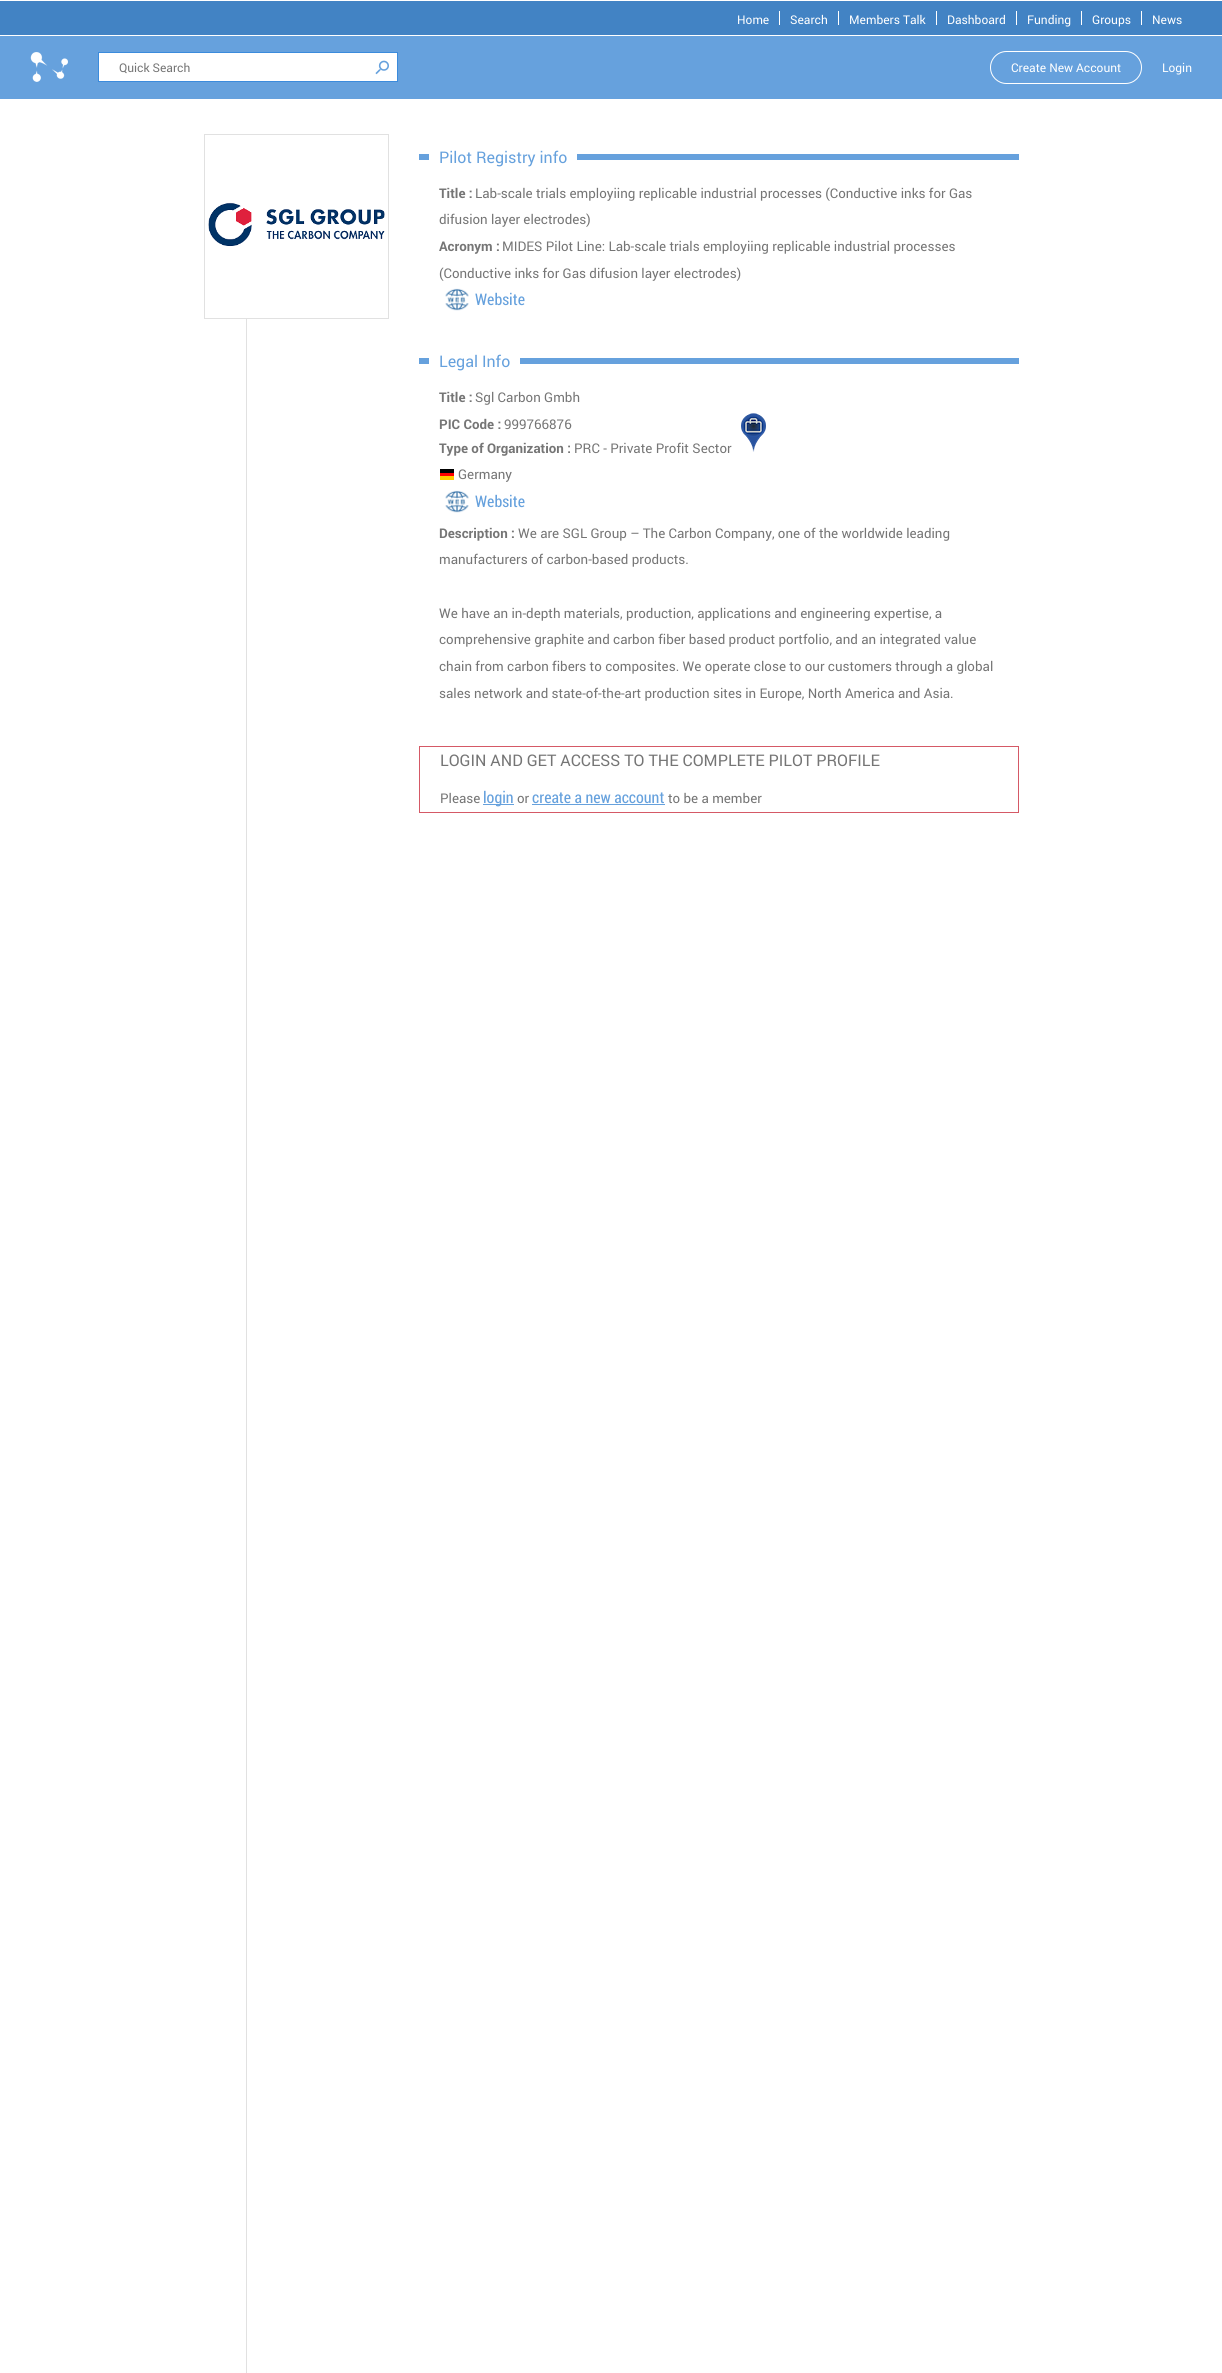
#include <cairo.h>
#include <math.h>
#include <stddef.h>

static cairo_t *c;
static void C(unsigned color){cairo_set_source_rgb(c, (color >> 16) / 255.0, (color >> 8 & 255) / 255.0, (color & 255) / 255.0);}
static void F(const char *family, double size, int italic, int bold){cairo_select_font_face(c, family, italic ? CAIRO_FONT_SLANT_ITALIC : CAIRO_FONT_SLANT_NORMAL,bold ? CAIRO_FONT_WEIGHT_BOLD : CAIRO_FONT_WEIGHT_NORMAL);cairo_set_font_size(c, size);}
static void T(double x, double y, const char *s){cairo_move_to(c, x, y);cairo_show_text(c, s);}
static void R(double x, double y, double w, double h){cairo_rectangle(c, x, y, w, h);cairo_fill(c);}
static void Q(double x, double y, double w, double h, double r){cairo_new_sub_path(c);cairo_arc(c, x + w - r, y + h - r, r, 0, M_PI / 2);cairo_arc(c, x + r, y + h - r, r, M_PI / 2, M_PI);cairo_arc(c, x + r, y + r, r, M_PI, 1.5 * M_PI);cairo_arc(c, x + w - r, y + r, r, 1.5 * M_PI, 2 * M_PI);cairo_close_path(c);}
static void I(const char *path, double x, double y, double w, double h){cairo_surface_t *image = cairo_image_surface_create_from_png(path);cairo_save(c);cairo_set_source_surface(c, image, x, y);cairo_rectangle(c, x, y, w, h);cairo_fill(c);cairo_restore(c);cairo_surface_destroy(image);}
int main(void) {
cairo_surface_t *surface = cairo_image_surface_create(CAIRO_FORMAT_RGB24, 1222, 2373);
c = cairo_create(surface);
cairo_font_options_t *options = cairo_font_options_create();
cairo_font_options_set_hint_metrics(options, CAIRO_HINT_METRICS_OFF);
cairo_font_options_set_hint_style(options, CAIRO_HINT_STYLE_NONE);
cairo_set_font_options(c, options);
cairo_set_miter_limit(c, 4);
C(0xffffff);
cairo_paint(c);
C(0x4283c4);
R(0,1,1222,34);
C(0xffffff);
R(779,11,1,14);
F("Roboto",12,0,0);
T(737,24,"Home");
R(838,11,1,14);
T(790,24,"Search");
R(936,11,1,14);
T(849,24,"Members Talk");
R(1016,11,1,14);
T(947,24,"Dashboard");
R(1081,11,1,14);
T(1027,24,"Funding");
R(1141,11,1,14);
T(1092,24,"Groups");
T(1152,24,"News");
C(0x66a1dd);
R(0,36,1222,63);
I("1.png",30,52,38,30);
C(0xffffff);
cairo_rectangle(c,98.5,52.5,299,29);
cairo_fill_preserve(c);
C(0x3b8bdc);
cairo_set_line_width(c,1);
cairo_stroke(c);
C(0x757575);
T(119,72,"Quick Search");
I("2.png",375,60,14,15);
Q(990.5,51.5,151,32,16);
C(0xffffff);
cairo_stroke(c);
T(1011,72,"Create New Account");
T(1162,72,"Login");
cairo_rectangle(c,204.5,134.5,184,184);
C(0xe1e1e1);
cairo_stroke(c);
I("3.png",208,202,177,45);
R(246,319,1,2054);
C(0x66a1dd);
R(419,154,600,6);
C(0xffffff);
R(429,154,148,6);
F("Roboto",16,0,0);
C(0x66a1dd);
T(439,163,"Pilot Registry info");
F("Roboto",13.35,0,1);
C(0x757575);
T(439,198,"Title :");
F("Roboto",13.35,0,0);
T(475,198,"Lab-scale trials employiing replicable industrial processes (Conductive inks for Gas");
T(439,224,"difusion layer electrodes)");
F("Roboto",13.35,0,1);
T(439,251,"Acronym :");
F("Roboto",13.35,0,0);
T(502,251,"MIDES Pilot Line: Lab-scale trials employiing replicable industrial processes");
T(439,278,"(Conductive inks for Gas difusion layer electrodes)");
I("4.png",445,288,24,23);
F("Roboto Condensed",16,0,0);
C(0x66a1dd);
T(475,305,"Website");
R(419,358,600,6);
C(0xffffff);
R(429,358,91,6);
F("Roboto",16,0,0);
C(0x66a1dd);
T(439,367,"Legal Info");
F("Roboto",13.35,0,1);
C(0x757575);
T(439,402,"Title :");
F("Roboto",13.35,0,0);
T(475,402,"Sgl Carbon Gmbh");
F("Roboto",13.35,0,1);
T(439,429,"PIC Code :");
F("Roboto",13.35,0,0);
T(504,429,"999766876");
F("Roboto",13.35,0,1);
T(439,453,"Type of Organization :");
F("Roboto",13.35,0,0);
T(574,453,"PRC - Private Profit Sector");
I("5.png",741,413,25,39);
I("6.png",440,469,14,11);
T(458,479,"Germany");
I("4.png",445,490,24,23);
F("Roboto Condensed",16,0,0);
C(0x66a1dd);
T(475,507,"Website");
F("Roboto",13.35,0,1);
C(0x757575);
T(439,538,"Description :");
F("Roboto",13.35,0,0);
T(518,538,"We are SGL Group – The Carbon Company, one of the worldwide leading");
T(439,564,"manufacturers of carbon-based products.");
T(439,618,"We have an in-depth materials, production, applications and engineering expertise, a");
T(439,644,"comprehensive graphite and carbon fiber based product portfolio, and an integrated value");
T(439,671,"chain from carbon fibers to composites. We operate close to our customers through a global");
T(439,698,"sales network and state-of-the-art production sites in Europe, North America and Asia.");
cairo_rectangle(c,419.5,746.5,599,66);
C(0xd55966);
cairo_stroke(c);
F("Roboto",16,0,0);
C(0x757575);
T(440,766,"LOGIN AND GET ACCESS TO THE COMPLETE PILOT PROFILE");
F("Roboto",13.35,0,0);
T(440,803,"Please");
C(0x66a1dd);
R(483,804,31,1);
F("Roboto Condensed",16,0,0);
T(483,803,"login");
F("Roboto",13.35,0,0);
C(0x757575);
T(517,803,"or");
F("Roboto Condensed",16,0,0);
C(0x66a1dd);
T(532,803,"create a new account");
R(532,804,133,1);
F("Roboto",13.35,0,0);
C(0x757575);
T(668,803,"to be a member");
cairo_surface_write_to_png(surface, "o.png");
cairo_font_options_destroy(options);
cairo_destroy(c);
cairo_surface_destroy(surface);
return 0;
}
